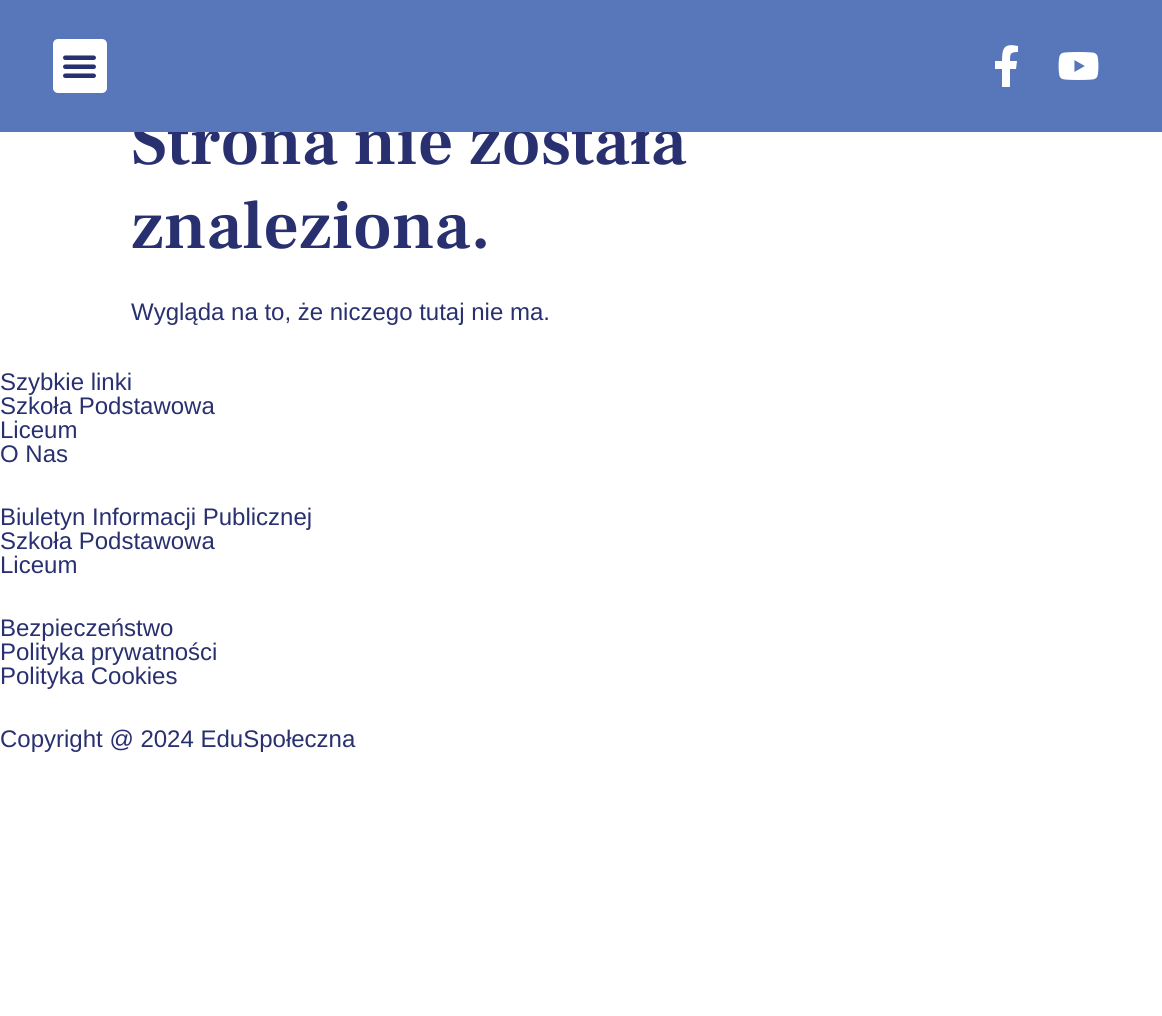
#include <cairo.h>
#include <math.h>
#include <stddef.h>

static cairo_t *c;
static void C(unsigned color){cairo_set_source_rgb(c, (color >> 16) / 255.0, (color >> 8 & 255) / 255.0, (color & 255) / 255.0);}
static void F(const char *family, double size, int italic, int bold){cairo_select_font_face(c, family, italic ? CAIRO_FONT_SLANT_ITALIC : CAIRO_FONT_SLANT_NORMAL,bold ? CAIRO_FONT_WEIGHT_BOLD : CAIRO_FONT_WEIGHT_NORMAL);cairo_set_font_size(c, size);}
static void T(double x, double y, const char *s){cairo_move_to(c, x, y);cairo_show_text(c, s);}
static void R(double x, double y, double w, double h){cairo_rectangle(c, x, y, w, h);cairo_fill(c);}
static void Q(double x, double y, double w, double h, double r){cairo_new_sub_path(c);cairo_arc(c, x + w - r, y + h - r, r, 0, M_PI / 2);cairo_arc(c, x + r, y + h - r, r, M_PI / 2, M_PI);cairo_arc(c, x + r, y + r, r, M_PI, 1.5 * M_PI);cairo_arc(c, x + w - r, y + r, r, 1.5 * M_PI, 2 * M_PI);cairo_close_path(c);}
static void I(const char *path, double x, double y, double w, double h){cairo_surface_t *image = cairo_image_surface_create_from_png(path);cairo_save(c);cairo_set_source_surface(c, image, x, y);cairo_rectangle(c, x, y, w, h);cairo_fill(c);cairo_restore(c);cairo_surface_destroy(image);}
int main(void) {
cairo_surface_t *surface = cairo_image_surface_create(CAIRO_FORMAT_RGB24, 1162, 1016);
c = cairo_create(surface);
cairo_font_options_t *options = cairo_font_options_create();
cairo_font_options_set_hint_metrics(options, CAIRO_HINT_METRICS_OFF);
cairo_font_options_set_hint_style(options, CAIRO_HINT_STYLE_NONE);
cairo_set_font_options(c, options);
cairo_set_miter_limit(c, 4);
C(0xffffff);
cairo_paint(c);
F("Frank Ruhl Libre SemiBold",69,0,0);
C(0x29306f);
T(131,164,"Strona nie została");
C(0x5876ba);
R(0,0,1162,132);
C(0xffffff);
Q(53,39,54,54,5);
cairo_fill(c);
I("1.png",63,55,33,23);
cairo_new_path(c);
cairo_move_to(c,1016,69);
cairo_line_to(c,1017,61);
cairo_line_to(c,1010,61);
cairo_curve_to(c,1010,54,1010,52,1018,52);
cairo_line_to(c,1018,46);
cairo_curve_to(c,1004,43,1002,48,1002,61);
cairo_line_to(c,995,61);
cairo_line_to(c,995,69);
cairo_line_to(c,1002,69);
cairo_line_to(c,1002,87);
cairo_line_to(c,1010,87);
cairo_line_to(c,1010,69);
cairo_close_path(c);
cairo_fill(c);
I("2.png",1058,52,41,28);
C(0x29306f);
T(131,248,"znaleziona.");
F("Liberation Sans",24,0,0);
T(131,320,"Wygląda na to, że niczego tutaj nie ma.");
T(0,390,"Szybkie linki");
T(0,414,"Szkoła Podstawowa");
T(0,438,"Liceum");
T(0,462,"O Nas");
T(0,525,"Biuletyn Informacji Publicznej");
T(0,549,"Szkoła Podstawowa");
T(0,573,"Liceum");
T(0,636,"Bezpieczeństwo");
T(0,660,"Polityka prywatności");
T(0,684,"Polityka Cookies");
T(0,747,"Copyright @ 2024 EduSpołeczna");
cairo_surface_write_to_png(surface, "o.png");
cairo_font_options_destroy(options);
cairo_destroy(c);
cairo_surface_destroy(surface);
return 0;
}
